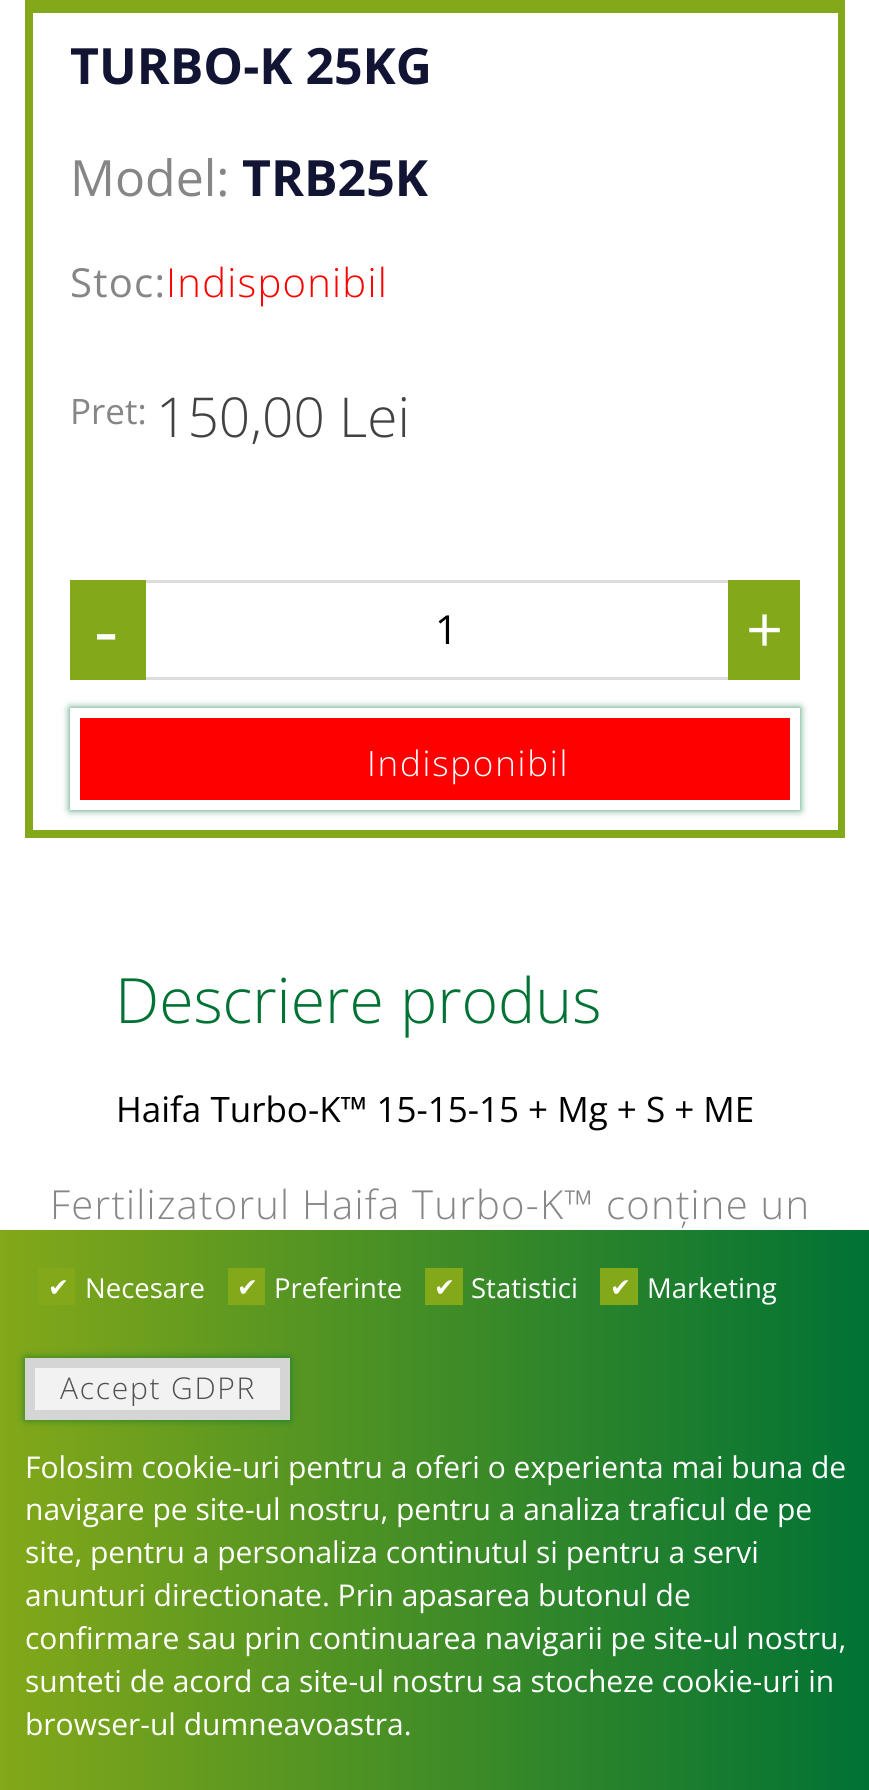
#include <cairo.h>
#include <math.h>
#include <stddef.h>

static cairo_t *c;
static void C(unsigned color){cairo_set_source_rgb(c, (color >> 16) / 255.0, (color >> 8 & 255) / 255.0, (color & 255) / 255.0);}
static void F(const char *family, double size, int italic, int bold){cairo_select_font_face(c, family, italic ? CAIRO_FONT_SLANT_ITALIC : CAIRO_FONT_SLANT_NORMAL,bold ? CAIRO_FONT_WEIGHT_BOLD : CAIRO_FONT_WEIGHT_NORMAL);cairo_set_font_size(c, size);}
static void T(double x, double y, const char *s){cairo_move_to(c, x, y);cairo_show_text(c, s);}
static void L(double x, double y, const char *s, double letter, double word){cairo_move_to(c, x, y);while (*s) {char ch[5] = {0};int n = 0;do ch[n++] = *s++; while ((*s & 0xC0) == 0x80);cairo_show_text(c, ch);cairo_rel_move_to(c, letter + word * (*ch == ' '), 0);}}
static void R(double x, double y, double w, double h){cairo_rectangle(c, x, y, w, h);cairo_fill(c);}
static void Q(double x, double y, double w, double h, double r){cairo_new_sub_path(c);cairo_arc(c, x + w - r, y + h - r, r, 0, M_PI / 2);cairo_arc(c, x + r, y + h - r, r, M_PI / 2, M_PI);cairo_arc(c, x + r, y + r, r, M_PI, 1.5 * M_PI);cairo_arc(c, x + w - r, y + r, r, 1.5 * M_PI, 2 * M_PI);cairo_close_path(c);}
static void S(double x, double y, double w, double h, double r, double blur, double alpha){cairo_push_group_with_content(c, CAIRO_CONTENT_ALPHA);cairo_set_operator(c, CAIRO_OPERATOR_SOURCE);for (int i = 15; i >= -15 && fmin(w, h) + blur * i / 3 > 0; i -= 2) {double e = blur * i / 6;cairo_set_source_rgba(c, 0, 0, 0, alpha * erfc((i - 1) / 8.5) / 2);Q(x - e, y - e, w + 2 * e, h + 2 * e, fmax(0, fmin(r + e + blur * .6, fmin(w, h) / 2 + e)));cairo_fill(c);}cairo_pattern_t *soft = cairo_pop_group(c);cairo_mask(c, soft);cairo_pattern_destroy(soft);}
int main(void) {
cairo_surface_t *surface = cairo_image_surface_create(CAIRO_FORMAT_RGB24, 869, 1790);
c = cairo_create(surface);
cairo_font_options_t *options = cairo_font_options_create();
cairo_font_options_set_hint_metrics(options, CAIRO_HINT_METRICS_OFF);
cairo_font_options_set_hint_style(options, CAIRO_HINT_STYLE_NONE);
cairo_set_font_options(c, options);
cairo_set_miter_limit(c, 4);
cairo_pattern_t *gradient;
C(0xffffff);
cairo_paint(c);
C(0x83a819);
R(25,0,820,13);
R(838,5,7,833);
R(25,830,820,8);
R(25,5,8,833);
F("Open Sans",50,0,1);
C(0x111433);
T(70,84,"TURBO-K 25KG");
F("Open Sans",50,0,0);
C(0x888585);
T(70,196,"Model:");
F("Open Sans",50,0,1);
C(0x111433);
T(242,196,"TRB25K");
F("Open Sans",40,0,0);
C(0x888585);
L(70,297,"Stoc:",1.25,0);
F("Open Sans Light",40,0,0);
C(0xff0000);
L(166,297,"Indisponibil",1.25,0);
F("Open Sans",35,0,0);
C(0x888585);
T(70,424,"Pret:");
F("Open Sans Light",55,0,0);
C(0x424242);
T(156,437,"150,00 Lei");
cairo_rectangle(c,144.5,581.5,654,97);
C(0xdddddd);
cairo_set_line_width(c,3);
cairo_stroke(c);
C(0x83a819);
R(70,580,76,100);
F("Open Sans",75,0,0);
C(0xffffff);
T(94,657,"-");
F("Open Sans",40,0,0);
C(0x000000);
T(435,644,"1");
C(0x83a819);
R(728,580,72,100);
F("Open Sans",65,0,0);
C(0xffffff);
T(746,653,"+");
C(0x007234);
S(70,708,730,102,0,4,.74);
C(0xff0000);
cairo_rectangle(c,75,713,720,92);
cairo_fill_preserve(c);
C(0xffffff);
cairo_set_line_width(c,10);
cairo_stroke(c);
F("Open Sans Light",35,0,0);
L(367,776,"Indisponibil",1.75,0);
F("Open Sans Light",62.5,0,0);
C(0x007234);
T(115,1023,"Descriere produs");
F("Open Sans",35,0,0);
C(0x000000);
T(116,1122,"Haifa Turbo-K™ 15-15-15 + Mg + S + ME");
F("Open Sans Light",40,0,0);
C(0x888585);
L(50,1219,"Fertilizatorul Haifa Turbo-K™ conține un",1.25,0);
gradient = cairo_pattern_create_linear(0,1510,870,1510);
cairo_pattern_add_color_stop_rgba(gradient,0,0.514,0.659,0.098,1);
cairo_pattern_add_color_stop_rgba(gradient,1,0,0.447,0.204,1);
cairo_set_source(c,gradient);
cairo_pattern_destroy(gradient);
R(0,1230,869,560);
C(0x83a819);
R(38,1268,37,37);
F("DejaVu Sans",25,0,0);
C(0xffffff);
T(48,1296,"✔");
F("Open Sans",27.5,0,0);
T(85,1298,"Necesare");
C(0x83a819);
R(228,1268,37,37);
F("DejaVu Sans",25,0,0);
C(0xffffff);
T(237,1296,"✔");
F("Open Sans",27.5,0,0);
T(274,1298,"Preferinte");
C(0x83a819);
R(425,1268,38,37);
F("DejaVu Sans",25,0,0);
C(0xffffff);
T(434,1296,"✔");
F("Open Sans",27.5,0,0);
T(471,1298,"Statistici");
C(0x83a819);
R(600,1268,38,37);
F("DejaVu Sans",25,0,0);
C(0xffffff);
T(610,1296,"✔");
F("Open Sans",27.5,0,0);
T(647,1298,"Marketing");
C(0x007234);
S(25,1358,265,62,0,4,.74);
C(0xf2f2f2);
cairo_rectangle(c,30,1363,255,52);
cairo_fill_preserve(c);
C(0xd5d5d5);
cairo_stroke(c);
F("Open Sans Light",30,0,0);
C(0x505050);
L(60,1399,"Accept GDPR",1.75,0);
F("Open Sans",30,0,0);
C(0xffffff);
T(25,1478,"Folosim cookie-uri pentru a oferi o experienta mai buna de");
T(25,1520,"navigare pe site-ul nostru, pentru a analiza traficul de pe");
T(25,1563,"site, pentru a personaliza continutul si pentru a servi");
T(25,1606,"anunturi directionate. Prin apasarea butonul de");
T(25,1649,"confirmare sau prin continuarea navigarii pe site-ul nostru,");
T(25,1692,"sunteti de acord ca site-ul nostru sa stocheze cookie-uri in");
T(25,1735,"browser-ul dumneavoastra.");
cairo_surface_write_to_png(surface, "o.png");
cairo_font_options_destroy(options);
cairo_destroy(c);
cairo_surface_destroy(surface);
return 0;
}
